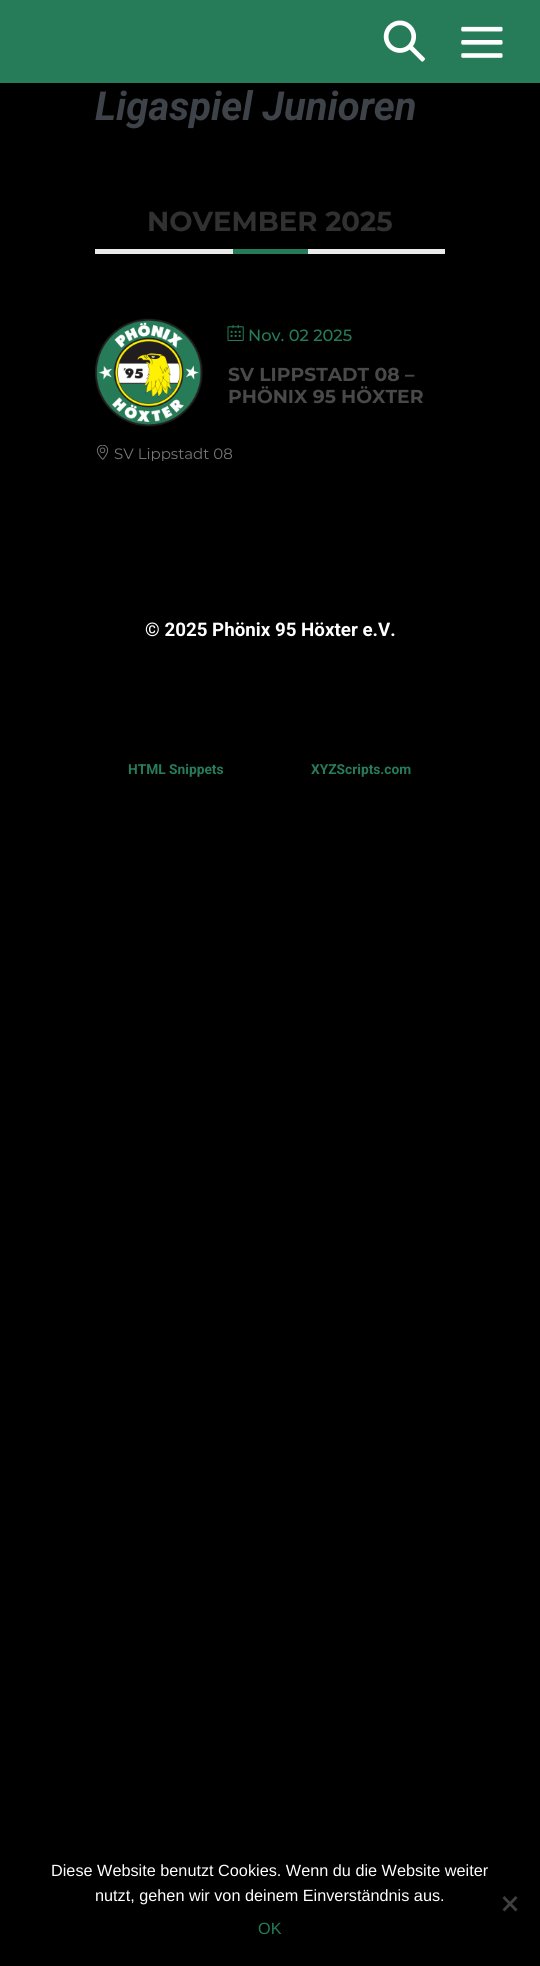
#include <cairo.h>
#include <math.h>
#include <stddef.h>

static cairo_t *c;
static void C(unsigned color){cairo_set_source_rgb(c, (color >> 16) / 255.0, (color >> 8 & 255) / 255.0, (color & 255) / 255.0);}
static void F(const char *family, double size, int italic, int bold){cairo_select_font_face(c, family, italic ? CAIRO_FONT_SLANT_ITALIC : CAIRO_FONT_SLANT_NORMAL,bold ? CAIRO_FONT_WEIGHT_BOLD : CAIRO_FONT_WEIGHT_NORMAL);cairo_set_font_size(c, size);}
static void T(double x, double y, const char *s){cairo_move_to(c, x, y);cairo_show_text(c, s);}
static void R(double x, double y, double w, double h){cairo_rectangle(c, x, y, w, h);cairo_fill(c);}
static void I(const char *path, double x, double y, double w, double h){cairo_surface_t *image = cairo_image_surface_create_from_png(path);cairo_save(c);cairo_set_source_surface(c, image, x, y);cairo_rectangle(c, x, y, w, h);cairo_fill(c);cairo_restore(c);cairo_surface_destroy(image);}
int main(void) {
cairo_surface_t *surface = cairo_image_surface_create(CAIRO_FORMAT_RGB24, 540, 1966);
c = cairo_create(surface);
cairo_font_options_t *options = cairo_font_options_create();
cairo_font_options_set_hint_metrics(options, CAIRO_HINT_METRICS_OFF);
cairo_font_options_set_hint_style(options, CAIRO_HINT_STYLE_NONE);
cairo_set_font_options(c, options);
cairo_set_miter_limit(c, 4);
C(0x000000);
cairo_paint(c);
C(0x267c59);
R(0,0,540,83);
I("1.png",383,20,42,42);
I("2.png",461,26,42,32);
F("Roboto",40,1,1);
C(0x3e4349);
T(95,120,"Ligaspiel Junioren");
C(0xebebeb);
R(95,249,350,5);
F("Montserrat",27.5,0,1);
C(0x313131);
T(147,231,"NOVEMBER 2025");
C(0x267c59);
R(233,249,75,5);
I("3.png",95,318,108,109);
I("4.png",227,324,17,17);
F("Montserrat Medium",16.25,0,0);
T(248,341,"Nov. 02 2025");
F("Montserrat",18.75,0,1);
C(0x494949);
T(228,381,"SV LIPPSTADT 08 –");
T(228,403,"PHÖNIX 95 HÖXTER");
I("5.png",96,445,13,15);
cairo_save(c);
cairo_rectangle(c,95,445,350,16);
cairo_clip(c);
F("Montserrat",15,0,0);
C(0x777777);
T(114,459,"SV Lippstadt 08");
cairo_restore(c);
F("Roboto",18.75,0,1);
C(0xffffff);
T(145,636,"© 2025 Phönix 95 Höxter e.V.");
F("Roboto",13.75,0,1);
C(0x267c59);
T(128,774,"HTML Snippets");
T(311,774,"XYZScripts.com");
F("Liberation Sans",16.25,0,0);
C(0xffffff);
T(51,1876,"Diese Website benutzt Cookies. Wenn du die Website weiter");
T(95,1901,"nutzt, gehen wir von deinem Einverständnis aus.");
C(0x404040);
cairo_new_path(c);
cairo_move_to(c,515.5,1896);
cairo_line_to(c,517.5,1898);
cairo_line_to(c,504.5,1911.5);
cairo_line_to(c,502.5,1909.5);
cairo_close_path(c);
cairo_fill(c);
cairo_new_path(c);
cairo_move_to(c,502.5,1898);
cairo_line_to(c,504.5,1896);
cairo_line_to(c,517.5,1909.5);
cairo_line_to(c,515.5,1911.5);
cairo_close_path(c);
cairo_fill(c);
C(0x267c59);
T(258,1934,"OK");
cairo_surface_write_to_png(surface, "o.png");
cairo_font_options_destroy(options);
cairo_destroy(c);
cairo_surface_destroy(surface);
return 0;
}
